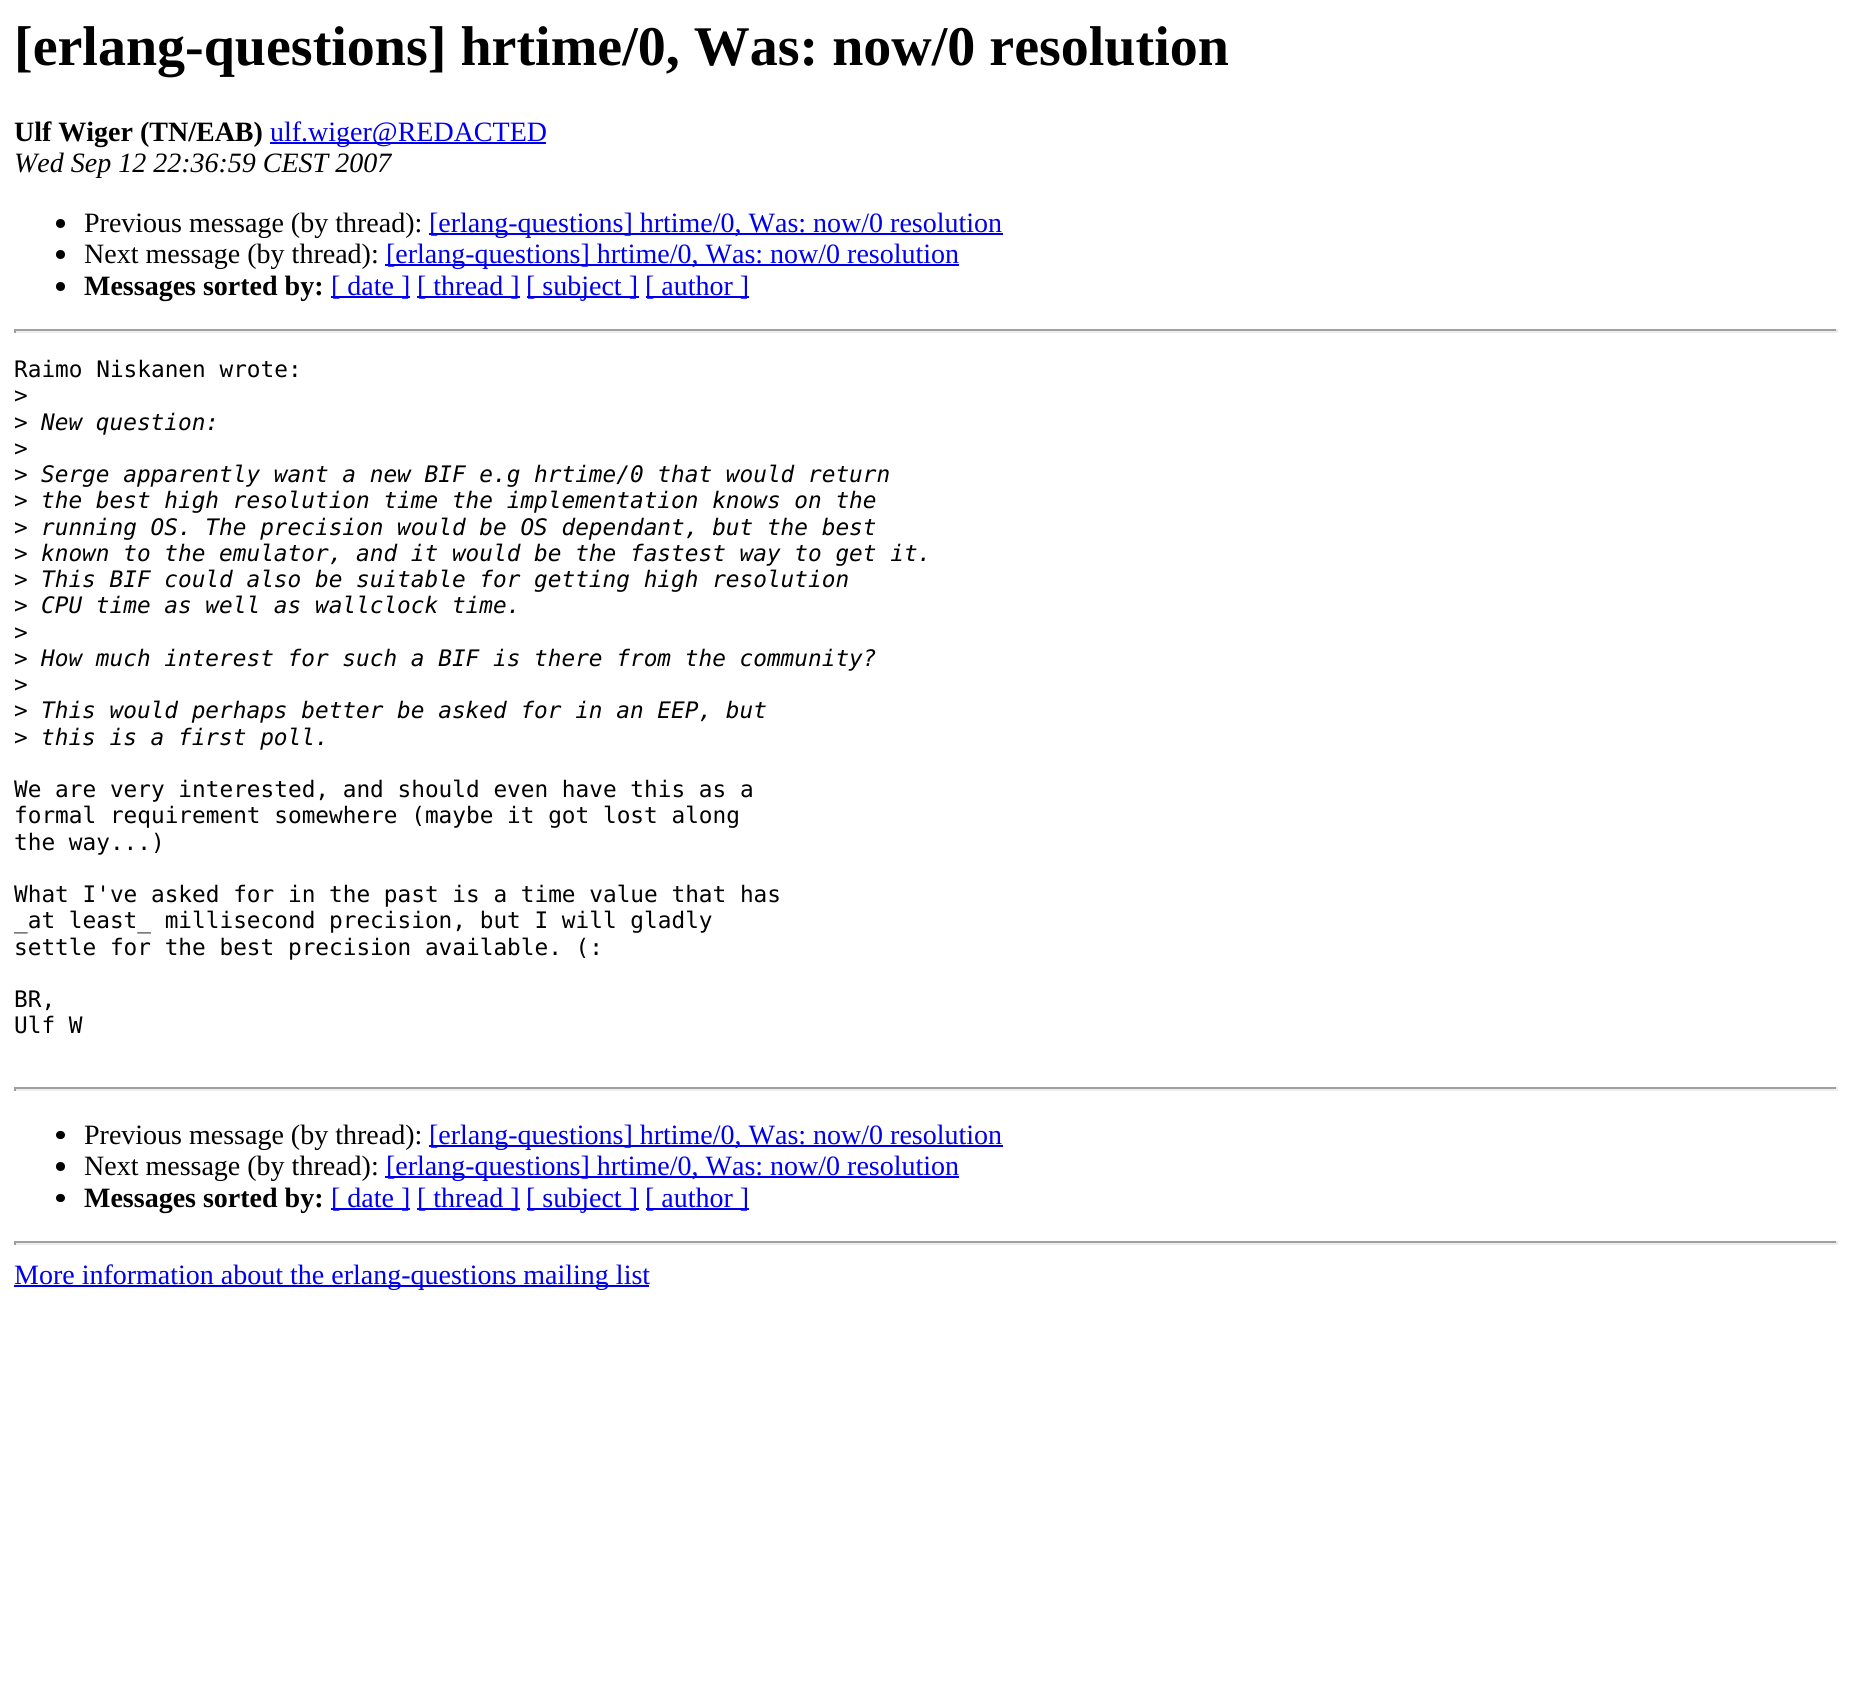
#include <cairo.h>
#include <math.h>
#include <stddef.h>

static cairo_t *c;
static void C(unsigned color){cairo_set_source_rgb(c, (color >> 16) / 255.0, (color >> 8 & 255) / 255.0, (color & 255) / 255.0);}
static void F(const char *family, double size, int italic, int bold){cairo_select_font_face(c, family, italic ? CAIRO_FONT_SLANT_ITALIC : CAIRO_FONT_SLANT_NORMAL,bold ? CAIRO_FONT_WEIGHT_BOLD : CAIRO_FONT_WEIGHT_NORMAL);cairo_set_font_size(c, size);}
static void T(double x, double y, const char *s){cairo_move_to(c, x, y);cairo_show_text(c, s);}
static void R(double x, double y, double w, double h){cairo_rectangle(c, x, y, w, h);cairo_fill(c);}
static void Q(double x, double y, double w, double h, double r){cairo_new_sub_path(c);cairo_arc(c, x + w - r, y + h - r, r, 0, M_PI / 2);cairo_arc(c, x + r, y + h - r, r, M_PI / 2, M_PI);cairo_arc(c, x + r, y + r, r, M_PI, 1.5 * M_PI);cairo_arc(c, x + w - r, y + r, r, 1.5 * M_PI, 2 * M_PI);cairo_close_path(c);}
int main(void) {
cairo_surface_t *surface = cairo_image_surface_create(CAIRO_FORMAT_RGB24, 1851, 1699);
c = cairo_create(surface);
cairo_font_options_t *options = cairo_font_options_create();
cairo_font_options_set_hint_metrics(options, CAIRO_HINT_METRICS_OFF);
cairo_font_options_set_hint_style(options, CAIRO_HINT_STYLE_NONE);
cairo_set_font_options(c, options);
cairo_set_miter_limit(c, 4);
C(0xffffff);
cairo_paint(c);
F("Liberation Serif",56,0,1);
C(0x000000);
T(14,65,"[erlang-questions] hrtime/0, Was: now/0 resolution");
F("Liberation Serif",28,0,1);
T(14,141,"Ulf Wiger (TN/EAB)");
C(0x0000ee);
R(270,142,276,2);
F("Liberation Serif",28,0,0);
T(270,141,"ulf.wiger@REDACTED");
F("Liberation Serif",28,1,0);
C(0x000000);
T(14,172,"Wed Sep 12 22:36:59 CEST 2007");
cairo_new_path(c);
cairo_arc(c,60.5,223.5,4.5,0,2 * M_PI);
cairo_fill(c);
F("Liberation Serif",28,0,0);
T(84,232,"Previous message (by thread):");
C(0x0000ee);
R(429,233,574,2);
T(429,232,"[erlang-questions] hrtime/0, Was: now/0 resolution");
C(0x000000);
cairo_new_path(c);
cairo_arc(c,60.5,254.5,4.5,0,2 * M_PI);
cairo_fill(c);
T(84,263,"Next message (by thread):");
C(0x0000ee);
R(385,264,574,2);
T(386,263,"[erlang-questions] hrtime/0, Was: now/0 resolution");
C(0x000000);
cairo_new_path(c);
cairo_arc(c,60.5,286.5,4.5,0,2 * M_PI);
cairo_fill(c);
F("Liberation Serif",28,0,1);
T(84,295,"Messages sorted by:");
C(0x0000ee);
R(331,296,79,2);
F("Liberation Serif",28,0,0);
T(331,295,"[ date ]");
R(417,296,103,2);
T(417,295,"[ thread ]");
R(527,296,112,2);
T(526,295,"[ subject ]");
R(646,296,103,2);
T(645,295,"[ author ]");
C(0x9f9f9f);
R(14,329,1824,2);
C(0xeeeeee);
R(1836,329,2,4);
R(14,331,1824,2);
C(0x9f9f9f);
R(14,329,2,4);
F("DejaVu Sans Mono",22.75,0,0);
C(0x000000);
T(14,377,"Raimo Niskanen wrote:");
T(14,403,">");
T(14,430,">");
F("DejaVu Sans Mono",22.75,1,0);
T(41,430,"New question:");
F("DejaVu Sans Mono",22.75,0,0);
T(14,456,">");
T(14,482,">");
F("DejaVu Sans Mono",22.75,1,0);
T(41,482,"Serge apparently want a new BIF e.g hrtime/0 that would return");
F("DejaVu Sans Mono",22.75,0,0);
T(14,508,">");
F("DejaVu Sans Mono",22.75,1,0);
T(41,508,"the best high resolution time the implementation knows on the");
F("DejaVu Sans Mono",22.75,0,0);
T(14,535,">");
F("DejaVu Sans Mono",22.75,1,0);
T(41,535,"running OS. The precision would be OS dependant, but the best");
F("DejaVu Sans Mono",22.75,0,0);
T(14,561,">");
F("DejaVu Sans Mono",22.75,1,0);
T(41,561,"known to the emulator, and it would be the fastest way to get it.");
F("DejaVu Sans Mono",22.75,0,0);
T(14,587,">");
F("DejaVu Sans Mono",22.75,1,0);
T(41,587,"This BIF could also be suitable for getting high resolution");
F("DejaVu Sans Mono",22.75,0,0);
T(14,613,">");
F("DejaVu Sans Mono",22.75,1,0);
T(41,613,"CPU time as well as wallclock time.");
F("DejaVu Sans Mono",22.75,0,0);
T(14,640,">");
T(14,666,">");
F("DejaVu Sans Mono",22.75,1,0);
T(41,666,"How much interest for such a BIF is there from the community?");
F("DejaVu Sans Mono",22.75,0,0);
T(14,692,">");
T(14,718,">");
F("DejaVu Sans Mono",22.75,1,0);
T(41,718,"This would perhaps better be asked for in an EEP, but");
F("DejaVu Sans Mono",22.75,0,0);
T(14,745,">");
F("DejaVu Sans Mono",22.75,1,0);
T(41,745,"this is a first poll.");
F("DejaVu Sans Mono",22.75,0,0);
T(14,797,"We are very interested, and should even have this as a");
T(14,823,"formal requirement somewhere (maybe it got lost along");
T(14,850,"the way...)");
T(14,902,"What I've asked for in the past is a time value that has");
T(14,928,"_at least_ millisecond precision, but I will gladly");
T(14,955,"settle for the best precision available. (:");
T(14,1007,"BR,");
T(14,1033,"Ulf W");
C(0x9f9f9f);
R(14,1087,1824,2);
C(0xeeeeee);
R(1836,1087,2,4);
R(14,1089,1824,2);
C(0x9f9f9f);
R(14,1087,2,4);
C(0x000000);
Q(56,1131,9,8,4);
cairo_fill(c);
F("Liberation Serif",28,0,0);
T(84,1144,"Previous message (by thread):");
C(0x0000ee);
R(429,1145,574,2);
T(429,1144,"[erlang-questions] hrtime/0, Was: now/0 resolution");
C(0x000000);
cairo_new_path(c);
cairo_arc(c,60.5,1166.5,4.5,0,2 * M_PI);
cairo_fill(c);
T(84,1175,"Next message (by thread):");
C(0x0000ee);
R(385,1176,574,2);
T(386,1175,"[erlang-questions] hrtime/0, Was: now/0 resolution");
C(0x000000);
Q(56,1194,9,8,4);
cairo_fill(c);
F("Liberation Serif",28,0,1);
T(84,1207,"Messages sorted by:");
C(0x0000ee);
R(331,1208,79,2);
F("Liberation Serif",28,0,0);
T(331,1207,"[ date ]");
R(417,1208,103,2);
T(417,1207,"[ thread ]");
R(527,1208,112,2);
T(526,1207,"[ subject ]");
R(646,1208,103,2);
T(645,1207,"[ author ]");
C(0x9f9f9f);
R(14,1241,1824,2);
C(0xeeeeee);
R(1836,1241,2,4);
R(14,1243,1824,2);
C(0x9f9f9f);
R(14,1241,2,4);
C(0x0000ee);
R(14,1285,635,2);
T(14,1284,"More information about the erlang-questions mailing list");
cairo_surface_write_to_png(surface, "o.png");
cairo_font_options_destroy(options);
cairo_destroy(c);
cairo_surface_destroy(surface);
return 0;
}
